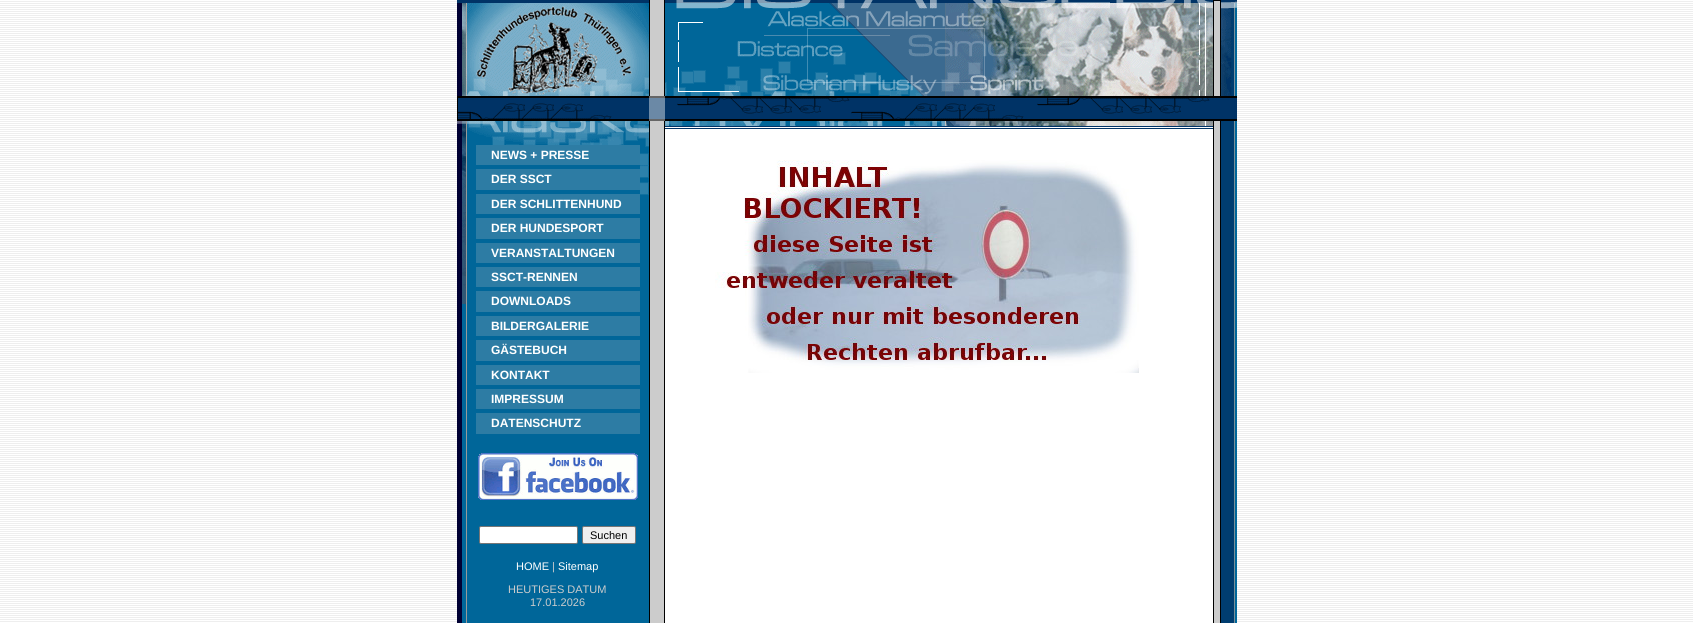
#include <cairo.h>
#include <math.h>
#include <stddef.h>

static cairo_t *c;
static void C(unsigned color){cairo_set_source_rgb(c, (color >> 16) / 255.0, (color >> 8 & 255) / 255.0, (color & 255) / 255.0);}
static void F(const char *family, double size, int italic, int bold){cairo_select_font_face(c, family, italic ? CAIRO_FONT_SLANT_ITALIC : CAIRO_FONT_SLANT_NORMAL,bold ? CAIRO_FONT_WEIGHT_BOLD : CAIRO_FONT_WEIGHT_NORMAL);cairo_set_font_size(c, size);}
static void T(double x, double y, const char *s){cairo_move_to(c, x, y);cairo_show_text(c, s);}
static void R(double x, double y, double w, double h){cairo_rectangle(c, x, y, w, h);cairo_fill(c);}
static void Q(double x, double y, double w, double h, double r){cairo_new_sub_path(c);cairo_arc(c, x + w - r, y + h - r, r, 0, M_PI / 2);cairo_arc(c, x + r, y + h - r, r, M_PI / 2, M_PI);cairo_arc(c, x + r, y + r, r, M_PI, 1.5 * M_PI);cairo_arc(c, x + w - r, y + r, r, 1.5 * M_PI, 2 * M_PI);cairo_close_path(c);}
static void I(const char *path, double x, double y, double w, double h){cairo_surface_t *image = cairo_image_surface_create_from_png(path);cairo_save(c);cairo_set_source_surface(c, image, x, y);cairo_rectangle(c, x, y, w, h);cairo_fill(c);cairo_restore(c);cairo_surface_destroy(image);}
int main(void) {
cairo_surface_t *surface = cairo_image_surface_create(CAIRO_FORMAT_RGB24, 1693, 623);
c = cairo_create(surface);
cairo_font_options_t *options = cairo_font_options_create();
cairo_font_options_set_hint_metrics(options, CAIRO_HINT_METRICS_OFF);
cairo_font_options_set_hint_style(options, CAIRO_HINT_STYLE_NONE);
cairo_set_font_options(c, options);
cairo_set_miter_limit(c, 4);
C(0xffffff);
cairo_paint(c);
I("1.png",0,0,1693,623);
C(0x003366);
R(457,0,192,3);
I("2.png",457,3,192,93);
C(0x000000);
R(649,0,1,96);
C(0xcccccc);
R(650,0,14,96);
C(0x000000);
R(664,0,1,96);
I("3.png",665,0,572,96);
I("4.png",457,96,192,25);
I("5.png",649,96,16,25);
I("6.png",665,96,572,25);
I("7.png",457,304,9,319);
I("8.png",457,121,9,183);
C(0x999999);
R(466,121,1,502);
C(0x006699);
R(467,195,182,428);
I("9.png",467,121,182,74);
C(0x2d7ca4);
R(476,145,164,20);
F("Liberation Sans",12,0,1);
C(0xffffff);
T(491,159,"NEWS + PRESSE");
C(0x006699);
R(501,165,139,4);
C(0x2d7ca4);
R(476,169,164,21);
C(0xffffff);
T(491,183,"DER SSCT");
C(0x006699);
R(636,190,4,4);
C(0x2d7ca4);
R(476,194,164,20);
C(0xffffff);
T(491,208,"DER SCHLITTENHUND");
C(0x2d7ca4);
R(476,218,164,21);
C(0xffffff);
T(491,232,"DER HUNDESPORT");
C(0x2d7ca4);
R(476,243,164,20);
C(0xffffff);
T(491,257,"VERANSTALTUNGEN");
C(0x2d7ca4);
R(476,267,164,20);
C(0xffffff);
T(491,281,"SSCT-RENNEN");
C(0x2d7ca4);
R(476,291,164,21);
C(0xffffff);
T(491,305,"DOWNLOADS");
C(0x2d7ca4);
R(476,316,164,20);
C(0xffffff);
T(491,330,"BILDERGALERIE");
C(0x2d7ca4);
R(476,340,164,21);
C(0xffffff);
T(491,354,"GÄSTEBUCH");
C(0x2d7ca4);
R(476,365,164,20);
C(0xffffff);
T(491,379,"KONTAKT");
C(0x2d7ca4);
R(476,389,164,20);
C(0xffffff);
T(491,403,"IMPRESSUM");
C(0x2d7ca4);
R(476,413,164,21);
C(0xffffff);
T(491,427,"DATENSCHUTZ");
I("10.png",478,453,160,47);
Q(479.5,526.5,98,17,1.5);
cairo_fill_preserve(c);
C(0x767676);
cairo_set_line_width(c,1);
cairo_stroke(c);
C(0xefefef);
Q(582.5,526.5,53,17,1.5);
cairo_fill_preserve(c);
C(0x767676);
cairo_stroke(c);
F("Liberation Sans",11,0,0);
C(0x000000);
T(590,539,"Suchen");
C(0xffffff);
T(516,570,"HOME");
C(0xcccccc);
T(552,570,"|");
C(0xffffff);
T(558,570,"Sitemap");
C(0xcccccc);
T(508,593,"HEUTIGES DATUM");
T(530,606,"17.01.2026");
C(0x000000);
R(649,121,1,502);
C(0xcccccc);
R(650,121,14,502);
C(0x000000);
R(664,121,1,502);
C(0xffffff);
R(665,129,548,493);
I("11.png",665,121,548,8);
I("12.png",715,160,424,213);
I("13.png",1213,121,24,502);
cairo_surface_write_to_png(surface, "o.png");
cairo_font_options_destroy(options);
cairo_destroy(c);
cairo_surface_destroy(surface);
return 0;
}
